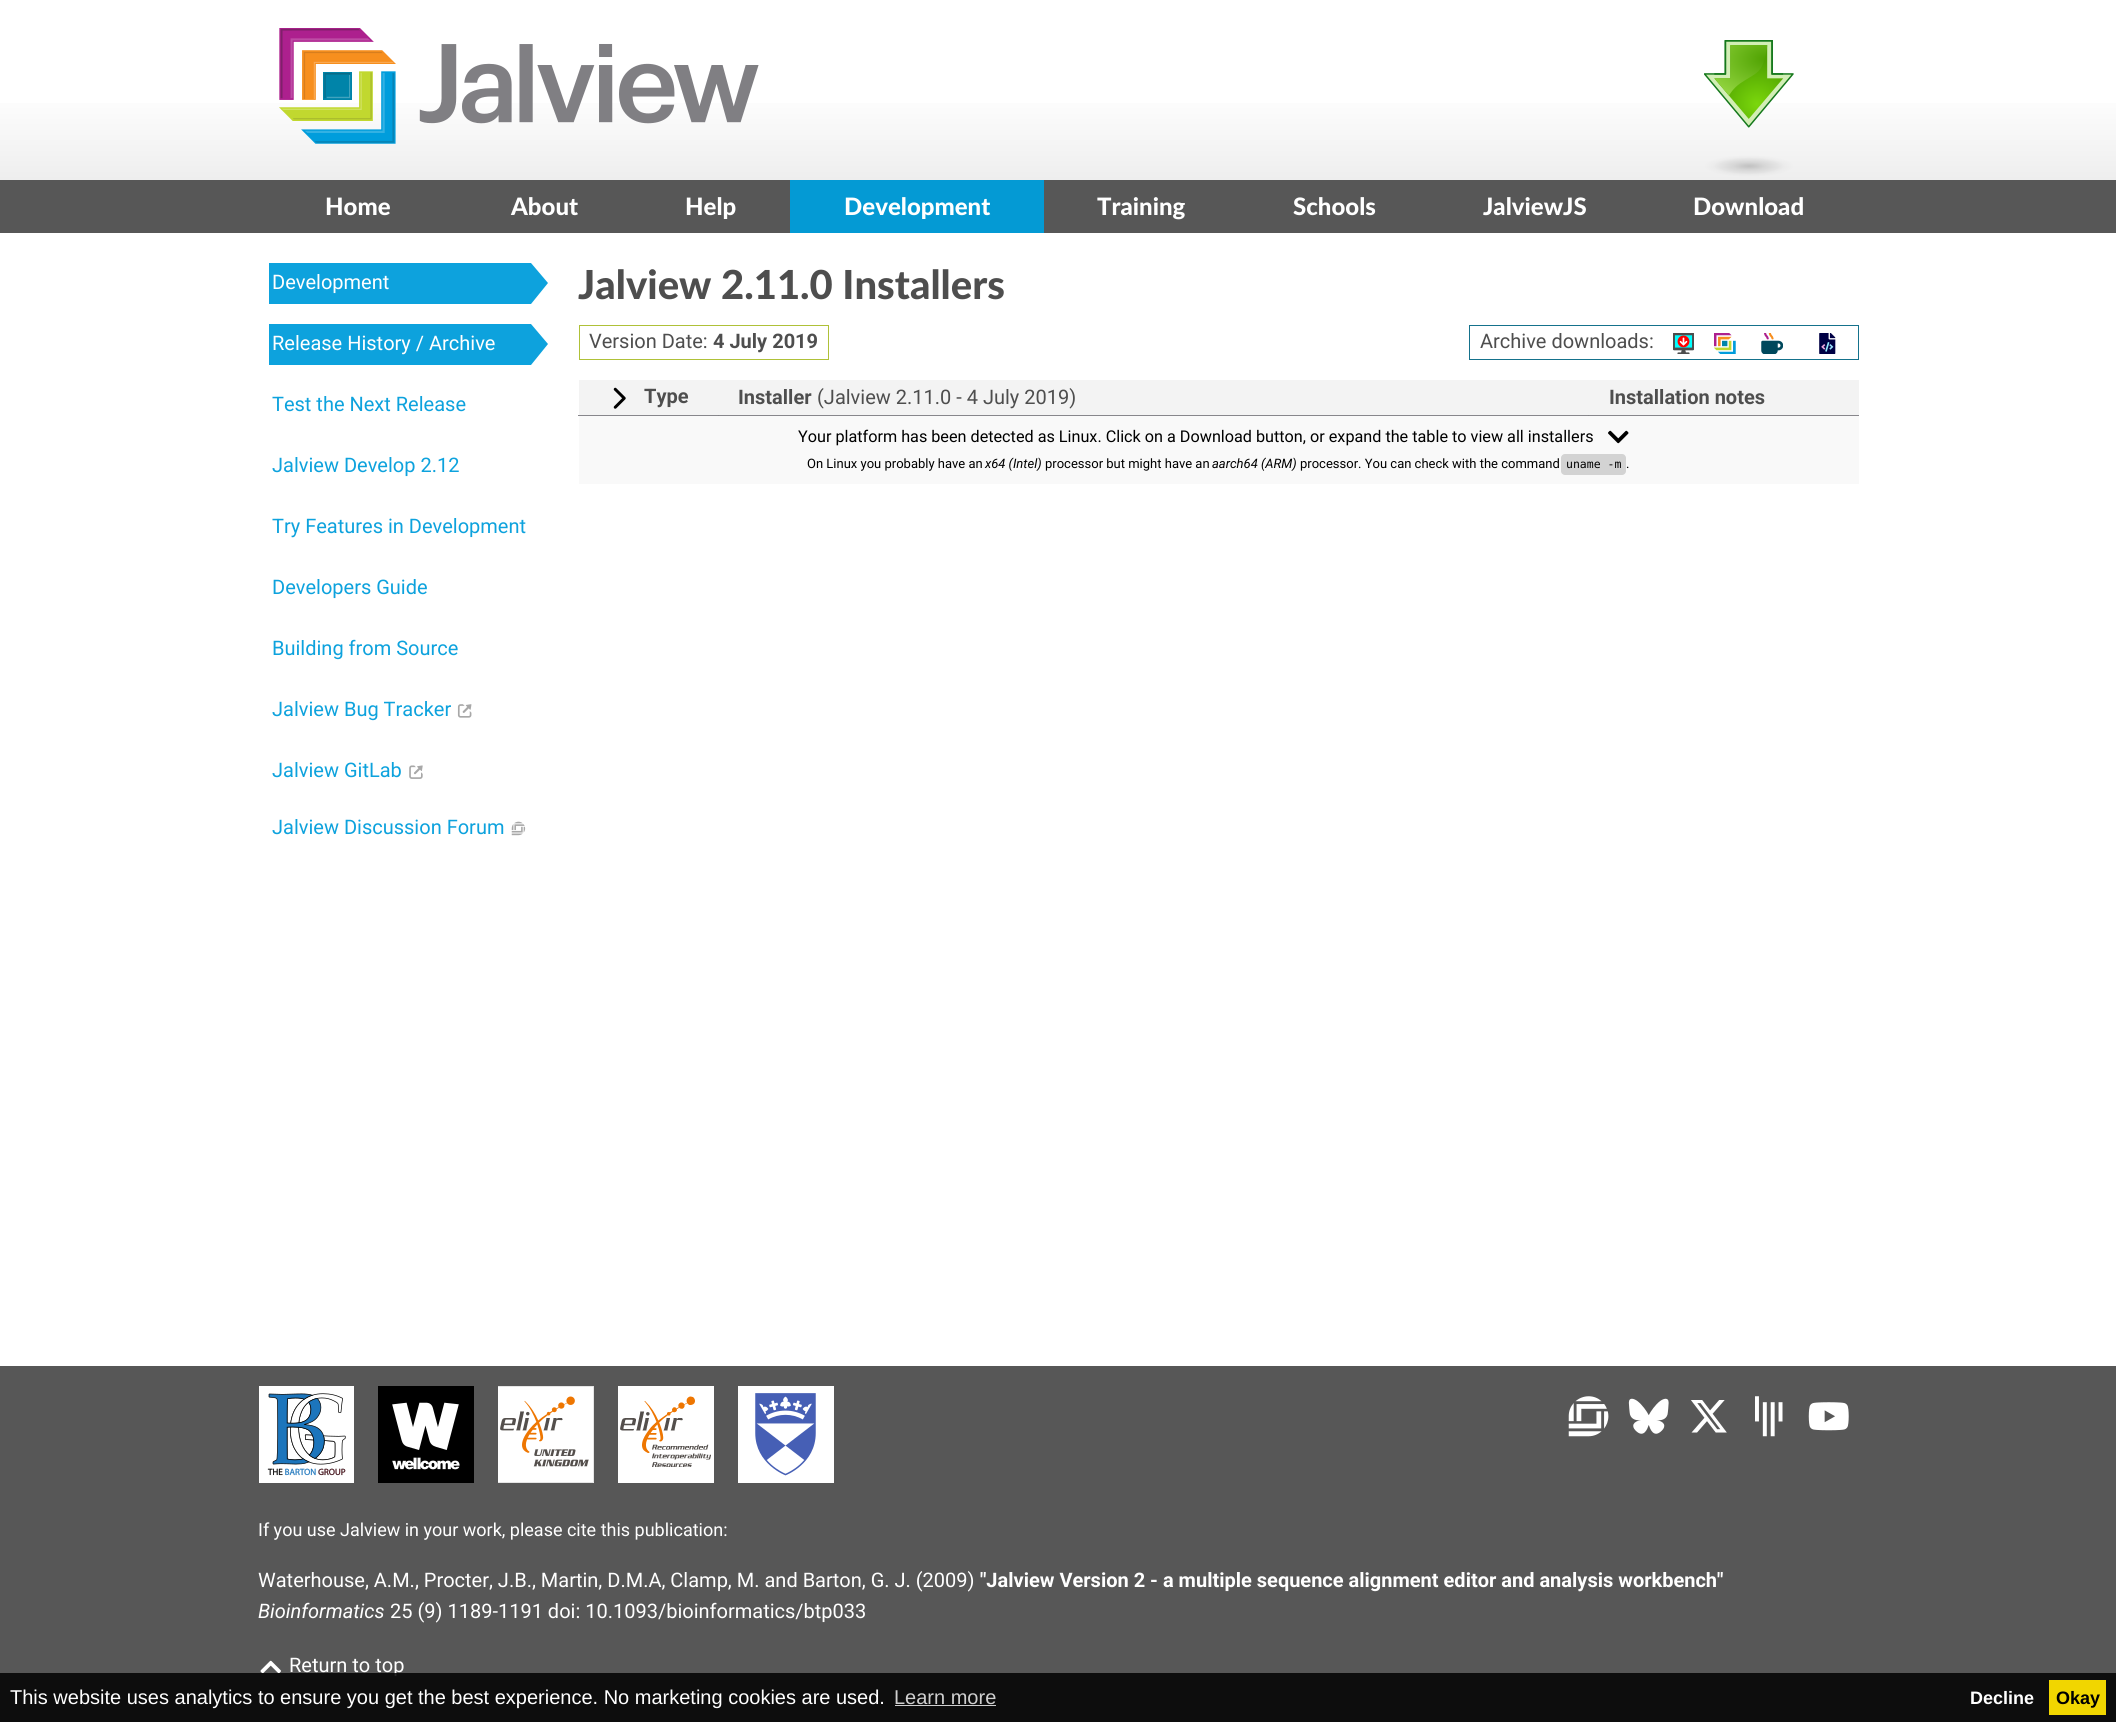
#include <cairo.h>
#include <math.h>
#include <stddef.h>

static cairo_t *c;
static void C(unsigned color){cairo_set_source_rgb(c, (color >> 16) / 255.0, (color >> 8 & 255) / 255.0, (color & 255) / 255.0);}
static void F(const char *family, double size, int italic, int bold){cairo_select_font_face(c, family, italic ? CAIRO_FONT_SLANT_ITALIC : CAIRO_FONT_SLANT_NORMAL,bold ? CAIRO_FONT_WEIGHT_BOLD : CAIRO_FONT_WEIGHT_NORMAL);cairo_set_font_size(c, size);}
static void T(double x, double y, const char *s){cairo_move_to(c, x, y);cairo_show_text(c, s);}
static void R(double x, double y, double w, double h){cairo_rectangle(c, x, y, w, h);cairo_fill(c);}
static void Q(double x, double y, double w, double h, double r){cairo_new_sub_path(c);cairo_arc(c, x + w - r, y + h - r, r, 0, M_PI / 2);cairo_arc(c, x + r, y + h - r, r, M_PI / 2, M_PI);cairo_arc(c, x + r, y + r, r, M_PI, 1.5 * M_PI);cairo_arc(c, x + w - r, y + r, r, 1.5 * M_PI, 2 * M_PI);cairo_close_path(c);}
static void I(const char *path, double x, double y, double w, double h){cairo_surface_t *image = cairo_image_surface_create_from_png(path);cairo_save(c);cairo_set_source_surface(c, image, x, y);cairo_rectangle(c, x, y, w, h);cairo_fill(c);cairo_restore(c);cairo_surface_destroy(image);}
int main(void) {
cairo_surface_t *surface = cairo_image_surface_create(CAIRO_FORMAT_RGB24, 2116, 1722);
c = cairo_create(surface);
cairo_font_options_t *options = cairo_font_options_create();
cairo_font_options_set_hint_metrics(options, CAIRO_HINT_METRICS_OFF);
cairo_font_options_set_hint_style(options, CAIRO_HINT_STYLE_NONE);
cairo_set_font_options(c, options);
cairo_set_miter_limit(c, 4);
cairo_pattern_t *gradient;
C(0xffffff);
cairo_paint(c);
C(0x87868b);
R(578,415,1281,1);
gradient = cairo_pattern_create_linear(1058,180,1058,0);
cairo_pattern_add_color_stop_rgba(gradient,0,0.933,0.933,0.933,1);
cairo_pattern_add_color_stop_rgba(gradient,.5,1,1,1,1);
cairo_set_source(c,gradient);
cairo_pattern_destroy(gradient);
R(0,103,2116,77);
I("1.png",279,28,480,116);
C(0x575757);
R(0,180,2116,53);
F("Lato Black",24,0,0);
C(0xffffff);
T(325,215,"Home");
T(511,215,"About");
T(685,215,"Help");
C(0x049ad4);
R(790,180,254,53);
C(0xffffff);
T(844,215,"Development");
T(1097,215,"Training");
T(1293,215,"Schools");
T(1483,215,"JalviewJS");
I("2.png",1704,40,90,88);
gradient = cairo_pattern_create_radial(0,0,0,0,0,1);
cairo_pattern_set_matrix(gradient, &(cairo_matrix_t){1.0 / 45, 0, 0, 1.0 / 11, -1.0 * 1749 / 45, -1.0 * 166 / 11});
cairo_pattern_add_color_stop_rgba(gradient,0,0,0,0,.2);
cairo_pattern_add_color_stop_rgba(gradient,.39,0,0,0,.1);
cairo_pattern_add_color_stop_rgba(gradient,.67,0,0,0,.05);
cairo_pattern_add_color_stop_rgba(gradient,.78,0,0,0,.02);
cairo_pattern_add_color_stop_rgba(gradient,1,0,0,0,0);
cairo_set_source(c,gradient);
cairo_pattern_destroy(gradient);
cairo_new_path(c);
cairo_move_to(c,1749,155);
cairo_curve_to(c,1774,155,1794,160,1794,166);
cairo_curve_to(c,1794,172,1774,177,1749,177);
cairo_curve_to(c,1724,177,1704,172,1704,166);
cairo_curve_to(c,1704,160,1724,155,1749,155);
cairo_close_path(c);
cairo_fill(c);
C(0xffffff);
T(1693,215,"Download");
C(0x0da2dd);
cairo_new_path(c);
cairo_move_to(c,269,263);
cairo_line_to(c,531,263);
cairo_line_to(c,548,283);
cairo_line_to(c,531,304);
cairo_line_to(c,269,304);
cairo_close_path(c);
cairo_fill(c);
F("Roboto",20,0,0);
C(0xffffff);
T(272,289,"Development");
C(0x0da2dd);
cairo_new_path(c);
cairo_move_to(c,269,324);
cairo_line_to(c,531,324);
cairo_line_to(c,548,344);
cairo_line_to(c,531,365);
cairo_line_to(c,269,365);
cairo_close_path(c);
cairo_fill(c);
C(0xffffff);
T(272,350,"Release History / Archive");
C(0x0da2dd);
T(272,411,"Test the Next Release");
T(272,472,"Jalview Develop 2.12");
T(272,533,"Try Features in Development");
T(272,594,"Developers Guide");
T(272,655,"Building from Source");
T(272,716,"Jalview Bug Tracker");
I("3.png",457,704,15,14);
T(272,777,"Jalview GitLab");
I("4.png",409,765,14,14);
T(272,834,"Jalview Discussion Forum");
I("5.png",511,821,15,15);
F("Lato Black",40,0,0);
C(0x4e4e4e);
T(578,299,"Jalview 2.11.0 Installers");
cairo_rectangle(c,579.5,325.5,249,34);
C(0xafc138);
cairo_set_line_width(c,1);
cairo_stroke(c);
F("Roboto",20,0,0);
C(0x4e4e4e);
T(589,348,"Version Date:");
F("Roboto",20,0,1);
T(713,348,"4 July 2019");
cairo_rectangle(c,1469.5,325.5,389,34);
C(0x15728c);
cairo_stroke(c);
F("Roboto",20,0,0);
C(0x4e4e4e);
T(1480,348,"Archive downloads:");
I("6.png",1673,333,21,21);
I("7.png",1714,333,22,21);
I("8.png",1761,333,22,21);
I("9.png",1819,333,17,21);
C(0xf9f9f9);
R(579,416,1280,68);
C(0x818085);
R(718,415,1,1);
C(0xf3f3f3);
R(579,380,1280,35);
I("10.png",613,387,13,22);
F("Roboto",20,0,1);
C(0x4e4e4e);
T(644,403,"Type");
T(738,404,"Installer");
F("Roboto",20,0,0);
T(817,404,"(Jalview 2.11.0 - 4 July 2019)");
C(0x818085);
R(1588,415,1,1);
F("Roboto",20,0,1);
C(0x4e4e4e);
T(1609,404,"Installation notes");
F("Roboto",16.2,0,0);
C(0x000000);
T(798,442,"Your platform has been detected as Linux. Click on a Download button, or expand the table to view all installers");
I("11.png",1608,430,21,14);
F("Roboto",13,0,0);
T(807,468,"On Linux you probably have an");
F("Roboto",13,1,0);
T(985,468,"x64 (Intel)");
F("Roboto",13,0,0);
T(1045,468,"processor but might have an");
F("Roboto",13,1,0);
T(1212,468,"aarch64 (ARM)");
F("Roboto",13,0,0);
T(1300,468,"processor. You can check with the command");
C(0xd3d3d3);
Q(1561,454,65,21,4);
cairo_fill(c);
F("DejaVu Sans Mono",11.5,0,0);
C(0x000000);
T(1566,468,"uname -m");
F("Roboto",13,0,0);
T(1626,468,".");
C(0x575757);
R(0,1366,2116,356);
C(0xffffff);
R(259,1386,95,97);
I("12.png",267,1393,79,83);
C(0x000000);
R(378,1386,96,97);
I("13.png",392,1402,68,68);
C(0xffffff);
R(498,1482,96,1);
I("14.png",498,1386,96,97);
R(618,1386,96,97);
I("15.png",620,1396,91,71);
R(738,1386,96,97);
I("16.png",755,1393,61,83);
I("17.png",1568,1396,41,41);
I("18.png",1628,1398,41,36);
I("19.png",1691,1400,36,33);
I("20.png",1755,1396,28,41);
I("21.png",1808,1402,41,29);
F("Roboto",18,0,0);
T(258,1536,"If you use Jalview in your work, please cite this publication:");
F("Roboto",20,0,0);
T(258,1587,"Waterhouse, A.M., Procter, J.B., Martin, D.M.A, Clamp, M. and Barton, G. J. (2009)");
F("Roboto",20,0,1);
T(980,1587,"\"Jalview Version 2 - a multiple sequence alignment editor and analysis workbench\"");
F("Roboto",20,1,0);
T(258,1618,"Bioinformatics");
F("Roboto",20,0,0);
T(390,1618,"25 (9) 1189-1191 doi: 10.1093/bioinformatics/btp033");
I("22.png",260,1660,21,14);
T(289,1672,"Return to top");
cairo_set_source_rgba(c,0,0,0,0.85);
R(0,1673,2116,49);
F("Liberation Sans",20,0,0);
C(0xffffff);
T(10,1704,"This website uses analytics to ensure you get the best experience. No marketing cookies are used.");
C(0xcfcfcf);
T(894,1704,"Learn more");
R(895,1705,101,1);
F("Liberation Sans",18,0,1);
C(0xffffff);
T(1970,1704,"Decline");
C(0xf1d600);
R(2049,1680,57,35);
C(0x000000);
T(2056,1704,"Okay");
cairo_surface_write_to_png(surface, "o.png");
cairo_font_options_destroy(options);
cairo_destroy(c);
cairo_surface_destroy(surface);
return 0;
}
